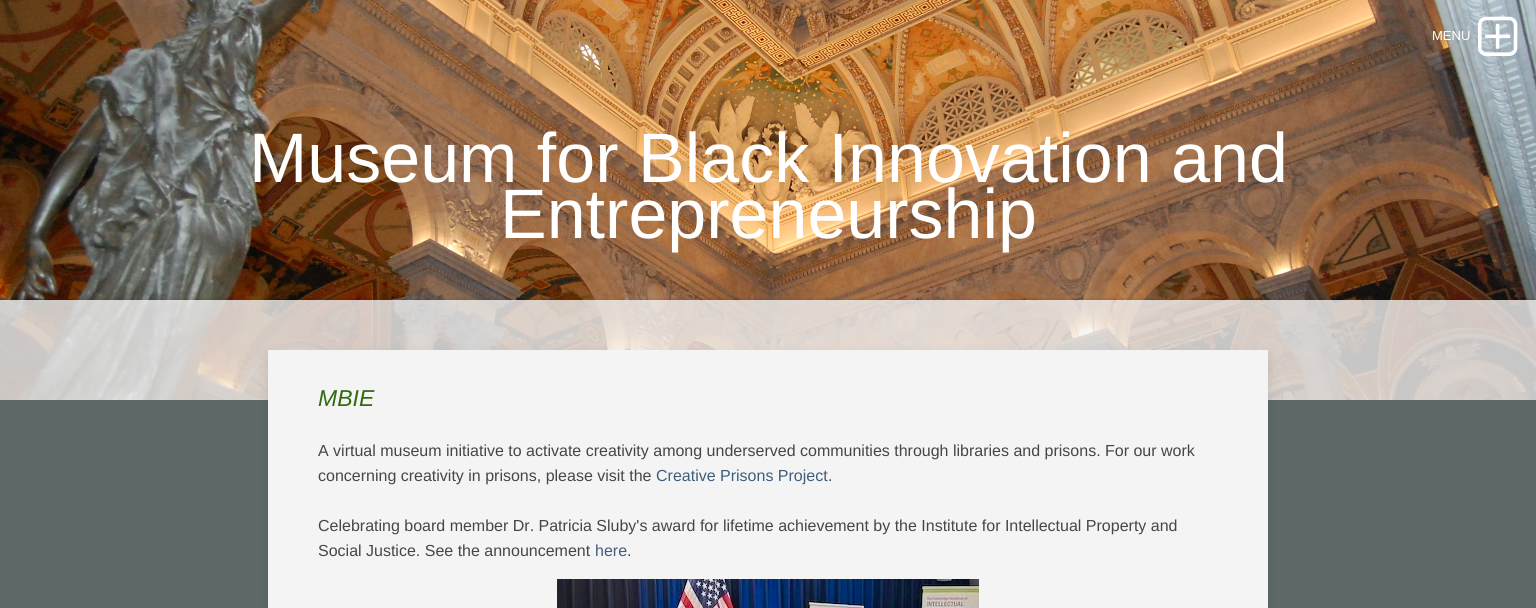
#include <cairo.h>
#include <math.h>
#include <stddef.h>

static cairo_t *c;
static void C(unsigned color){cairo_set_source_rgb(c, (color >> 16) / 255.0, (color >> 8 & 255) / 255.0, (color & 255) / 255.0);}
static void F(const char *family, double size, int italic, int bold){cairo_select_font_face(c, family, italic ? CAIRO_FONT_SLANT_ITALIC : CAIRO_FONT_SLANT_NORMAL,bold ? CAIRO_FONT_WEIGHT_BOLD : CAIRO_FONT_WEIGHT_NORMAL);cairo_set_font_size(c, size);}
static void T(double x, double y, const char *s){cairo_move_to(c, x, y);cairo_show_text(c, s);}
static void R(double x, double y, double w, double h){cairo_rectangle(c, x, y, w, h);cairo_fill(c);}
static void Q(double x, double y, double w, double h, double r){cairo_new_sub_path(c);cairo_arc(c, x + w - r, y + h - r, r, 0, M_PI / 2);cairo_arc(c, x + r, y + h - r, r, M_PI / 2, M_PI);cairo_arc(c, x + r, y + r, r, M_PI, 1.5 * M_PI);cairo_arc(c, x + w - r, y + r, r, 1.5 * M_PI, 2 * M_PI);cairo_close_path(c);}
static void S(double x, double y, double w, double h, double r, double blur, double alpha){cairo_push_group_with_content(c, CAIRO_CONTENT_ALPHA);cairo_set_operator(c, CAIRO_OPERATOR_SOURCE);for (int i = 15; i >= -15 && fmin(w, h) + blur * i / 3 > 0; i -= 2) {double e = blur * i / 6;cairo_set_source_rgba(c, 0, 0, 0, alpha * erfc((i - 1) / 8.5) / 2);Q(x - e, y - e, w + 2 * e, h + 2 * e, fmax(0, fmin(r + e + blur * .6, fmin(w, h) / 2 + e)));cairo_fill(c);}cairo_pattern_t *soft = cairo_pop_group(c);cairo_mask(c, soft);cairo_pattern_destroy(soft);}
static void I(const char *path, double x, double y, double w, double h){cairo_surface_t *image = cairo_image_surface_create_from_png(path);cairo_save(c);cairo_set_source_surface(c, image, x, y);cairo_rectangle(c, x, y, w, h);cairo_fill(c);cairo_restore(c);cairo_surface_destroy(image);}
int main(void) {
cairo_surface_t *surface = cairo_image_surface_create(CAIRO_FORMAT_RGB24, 1536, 608);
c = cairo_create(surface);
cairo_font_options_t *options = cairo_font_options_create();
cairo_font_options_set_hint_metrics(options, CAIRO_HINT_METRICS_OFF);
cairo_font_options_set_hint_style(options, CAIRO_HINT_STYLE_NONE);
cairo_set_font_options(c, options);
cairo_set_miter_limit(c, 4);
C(0x5d6868);
cairo_paint(c);
I("2.png",0,0,1536,400);
F("Liberation Sans",13,0,0);
C(0xffffff);
T(1432,40,"MENU");
I("1.png",1478,16,40,40);
F("Liberation Sans",70,0,0);
T(249,182,"Museum for Black Innovation and");
T(500,238,"Entrepreneurship");
cairo_save(c);
cairo_rectangle(c,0,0,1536,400);
cairo_clip(c);
cairo_rectangle(c,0,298,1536,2);
cairo_clip(c);
C(0x000000);
S(0,302,1536,100,0,3,.3);
cairo_restore(c);
cairo_set_source_rgba(c,0.957,0.957,0.957,0.8);
R(0,300,1536,100);
C(0x000000);
S(268,355,1000,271,0,6,.11);
C(0xf4f4f4);
R(268,350,1000,258);
F("Liberation Sans",23,1,0);
C(0x316a10);
T(318,406,"MBIE");
F("Liberation Sans",16,0,0);
C(0x464646);
T(318,456,"A virtual museum initiative to activate creativity among underserved communities through libraries and prisons. For our work");
T(318,481,"concerning creativity in prisons, please visit the");
C(0x3f5d7c);
T(656,481,"Creative Prisons Project");
C(0x464646);
T(828,481,".");
T(318,531,"Celebrating board member Dr. Patricia Sluby's award for lifetime achievement by the Institute for Intellectual Property and");
T(318,556,"Social Justice. See the announcement");
C(0x3f5d7c);
T(595,556,"here");
C(0x464646);
T(627,556,".");
I("3.png",557,579,422,29);
cairo_surface_write_to_png(surface, "o.png");
cairo_font_options_destroy(options);
cairo_destroy(c);
cairo_surface_destroy(surface);
return 0;
}
